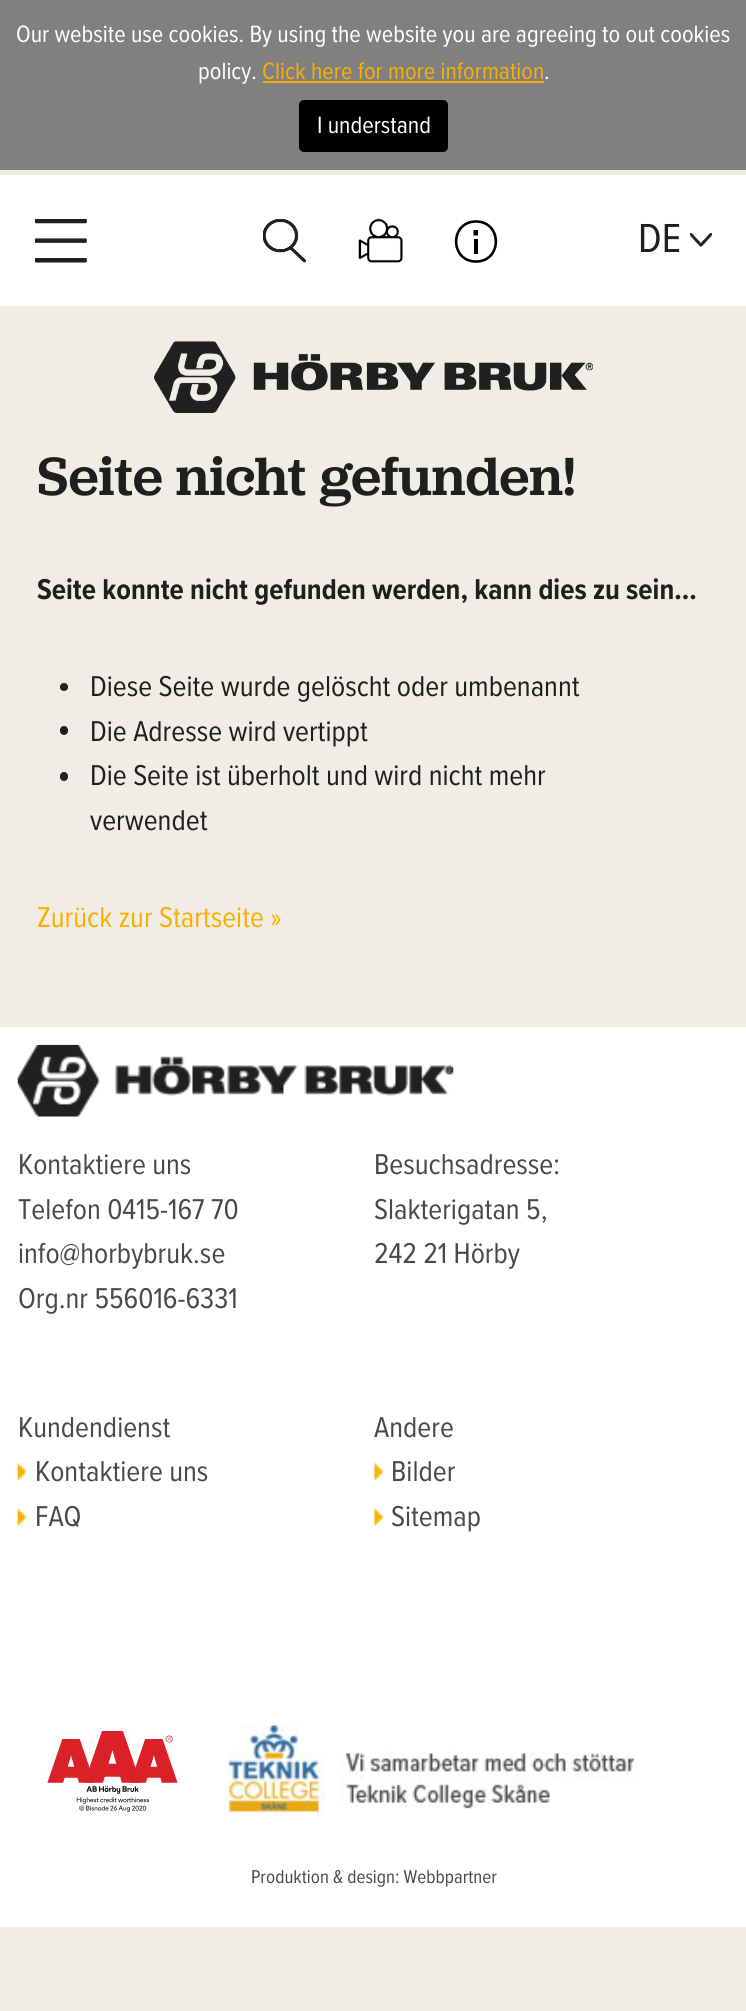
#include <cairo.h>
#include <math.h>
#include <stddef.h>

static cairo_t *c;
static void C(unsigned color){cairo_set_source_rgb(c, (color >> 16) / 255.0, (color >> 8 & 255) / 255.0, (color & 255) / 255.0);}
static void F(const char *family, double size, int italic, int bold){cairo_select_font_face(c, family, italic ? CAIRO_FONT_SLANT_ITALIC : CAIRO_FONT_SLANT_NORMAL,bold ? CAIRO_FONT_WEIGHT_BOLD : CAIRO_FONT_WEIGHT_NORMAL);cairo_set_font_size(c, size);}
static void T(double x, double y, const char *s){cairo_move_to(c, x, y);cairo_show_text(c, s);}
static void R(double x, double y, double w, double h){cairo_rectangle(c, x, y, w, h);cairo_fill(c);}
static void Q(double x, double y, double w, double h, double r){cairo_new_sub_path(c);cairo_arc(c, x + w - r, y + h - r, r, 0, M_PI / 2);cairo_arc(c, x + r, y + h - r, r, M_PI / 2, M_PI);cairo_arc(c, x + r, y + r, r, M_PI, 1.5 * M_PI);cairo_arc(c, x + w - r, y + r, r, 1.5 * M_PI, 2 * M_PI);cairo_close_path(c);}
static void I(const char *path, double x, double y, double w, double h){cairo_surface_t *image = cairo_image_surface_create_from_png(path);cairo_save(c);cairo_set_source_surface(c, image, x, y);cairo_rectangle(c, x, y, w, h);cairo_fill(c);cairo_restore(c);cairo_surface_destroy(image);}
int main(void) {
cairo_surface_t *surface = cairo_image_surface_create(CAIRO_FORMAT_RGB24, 746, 2011);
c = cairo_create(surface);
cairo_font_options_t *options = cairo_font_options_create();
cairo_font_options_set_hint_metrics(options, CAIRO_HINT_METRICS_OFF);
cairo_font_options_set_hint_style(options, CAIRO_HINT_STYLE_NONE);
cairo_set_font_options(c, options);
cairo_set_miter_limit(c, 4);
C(0xf0ede6);
cairo_paint(c);
C(0x808080);
R(0,0,746,170);
F("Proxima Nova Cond",24.5,0,0);
C(0xffffff);
T(16,42,"Our website use cookies. By using the website you are agreeing to out cookies");
T(198,79,"policy.");
C(0xf9ae02);
T(262,79,"Click here for more information");
R(263,81,281,2);
C(0xffffff);
T(544,79,".");
C(0x000000);
Q(299,100,149,52,5);
cairo_fill(c);
C(0xffffff);
T(317,133,"I understand");
R(0,175,746,131);
I("1.png",35,219,52,44);
I("2.png",263,219,43,44);
I("3.png",358,218,45,45);
cairo_new_path(c);
cairo_move_to(c,476,261.5);
cairo_curve_to(c,502.5,261.5,502.5,221.5,476,221.5);
cairo_curve_to(c,449.5,221.5,449.5,261.5,476,261.5);
cairo_close_path(c);
C(0x000000);
cairo_set_line_width(c,2.6);
cairo_set_line_cap(c,CAIRO_LINE_CAP_ROUND);
cairo_set_line_join(c,CAIRO_LINE_JOIN_ROUND);
cairo_stroke(c);
R(474,239,4,15);
cairo_new_path(c);
cairo_move_to(c,473.5,235.5);
cairo_line_to(c,478,235.5);
cairo_line_to(c,478,230);
cairo_line_to(c,473.5,230);
cairo_close_path(c);
cairo_fill(c);
F("Proxima Nova Cond",42,0,0);
C(0x1f1f1f);
T(638,252,"DE");
I("4.png",690,233,22,14);
I("5.png",154,341,439,72);
F("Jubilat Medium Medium",56,0,0);
T(37,495,"Seite nicht gefunden!");
F("Proxima Nova Cond",29.75,0,1);
T(37,599,"Seite konnte nicht gefunden werden, kann dies zu sein...");
cairo_new_path(c);
cairo_arc(c,64,687,4,0,2 * M_PI);
cairo_fill(c);
F("Proxima Nova Cond",29.75,0,0);
T(90,696,"Diese Seite wurde gelöscht oder umbenannt");
Q(60,726,8,9,4);
cairo_fill(c);
T(90,741,"Die Adresse wird vertippt");
Q(60,772,8,9,4);
cairo_fill(c);
T(90,785,"Die Seite ist überholt und wird nicht mehr");
T(90,830,"verwendet");
C(0xf9ae02);
T(37,927,"Zurück zur Startseite »");
C(0xffffff);
R(0,1027,746,900);
I("6.png",17,1044,437,73);
C(0x494949);
T(18,1174,"Kontaktiere uns");
T(18,1219,"Telefon 0415-167 70");
T(18,1263,"info@horbybruk.se");
T(18,1308,"Org.nr 556016-6331");
T(374,1174,"Besuchsadresse:");
T(374,1219,"Slakterigatan 5,");
T(374,1263,"242 21 Hörby");
T(18,1437,"Kundendienst");
I("7.png",17,1463,10,18);
T(35,1481,"Kontaktiere uns");
I("8.png",17,1508,10,18);
T(35,1526,"FAQ");
T(374,1437,"Andere");
I("9.png",374,1463,10,18);
T(391,1481,"Bilder");
I("10.png",374,1508,10,18);
T(391,1526,"Sitemap");
I("11.png",47,1731,131,81);
I("12.png",227,1724,409,89);
F("Proxima Nova Cond",19.25,0,0);
T(251,1883,"Produktion & design: Webbpartner");
cairo_surface_write_to_png(surface, "o.png");
cairo_font_options_destroy(options);
cairo_destroy(c);
cairo_surface_destroy(surface);
return 0;
}
